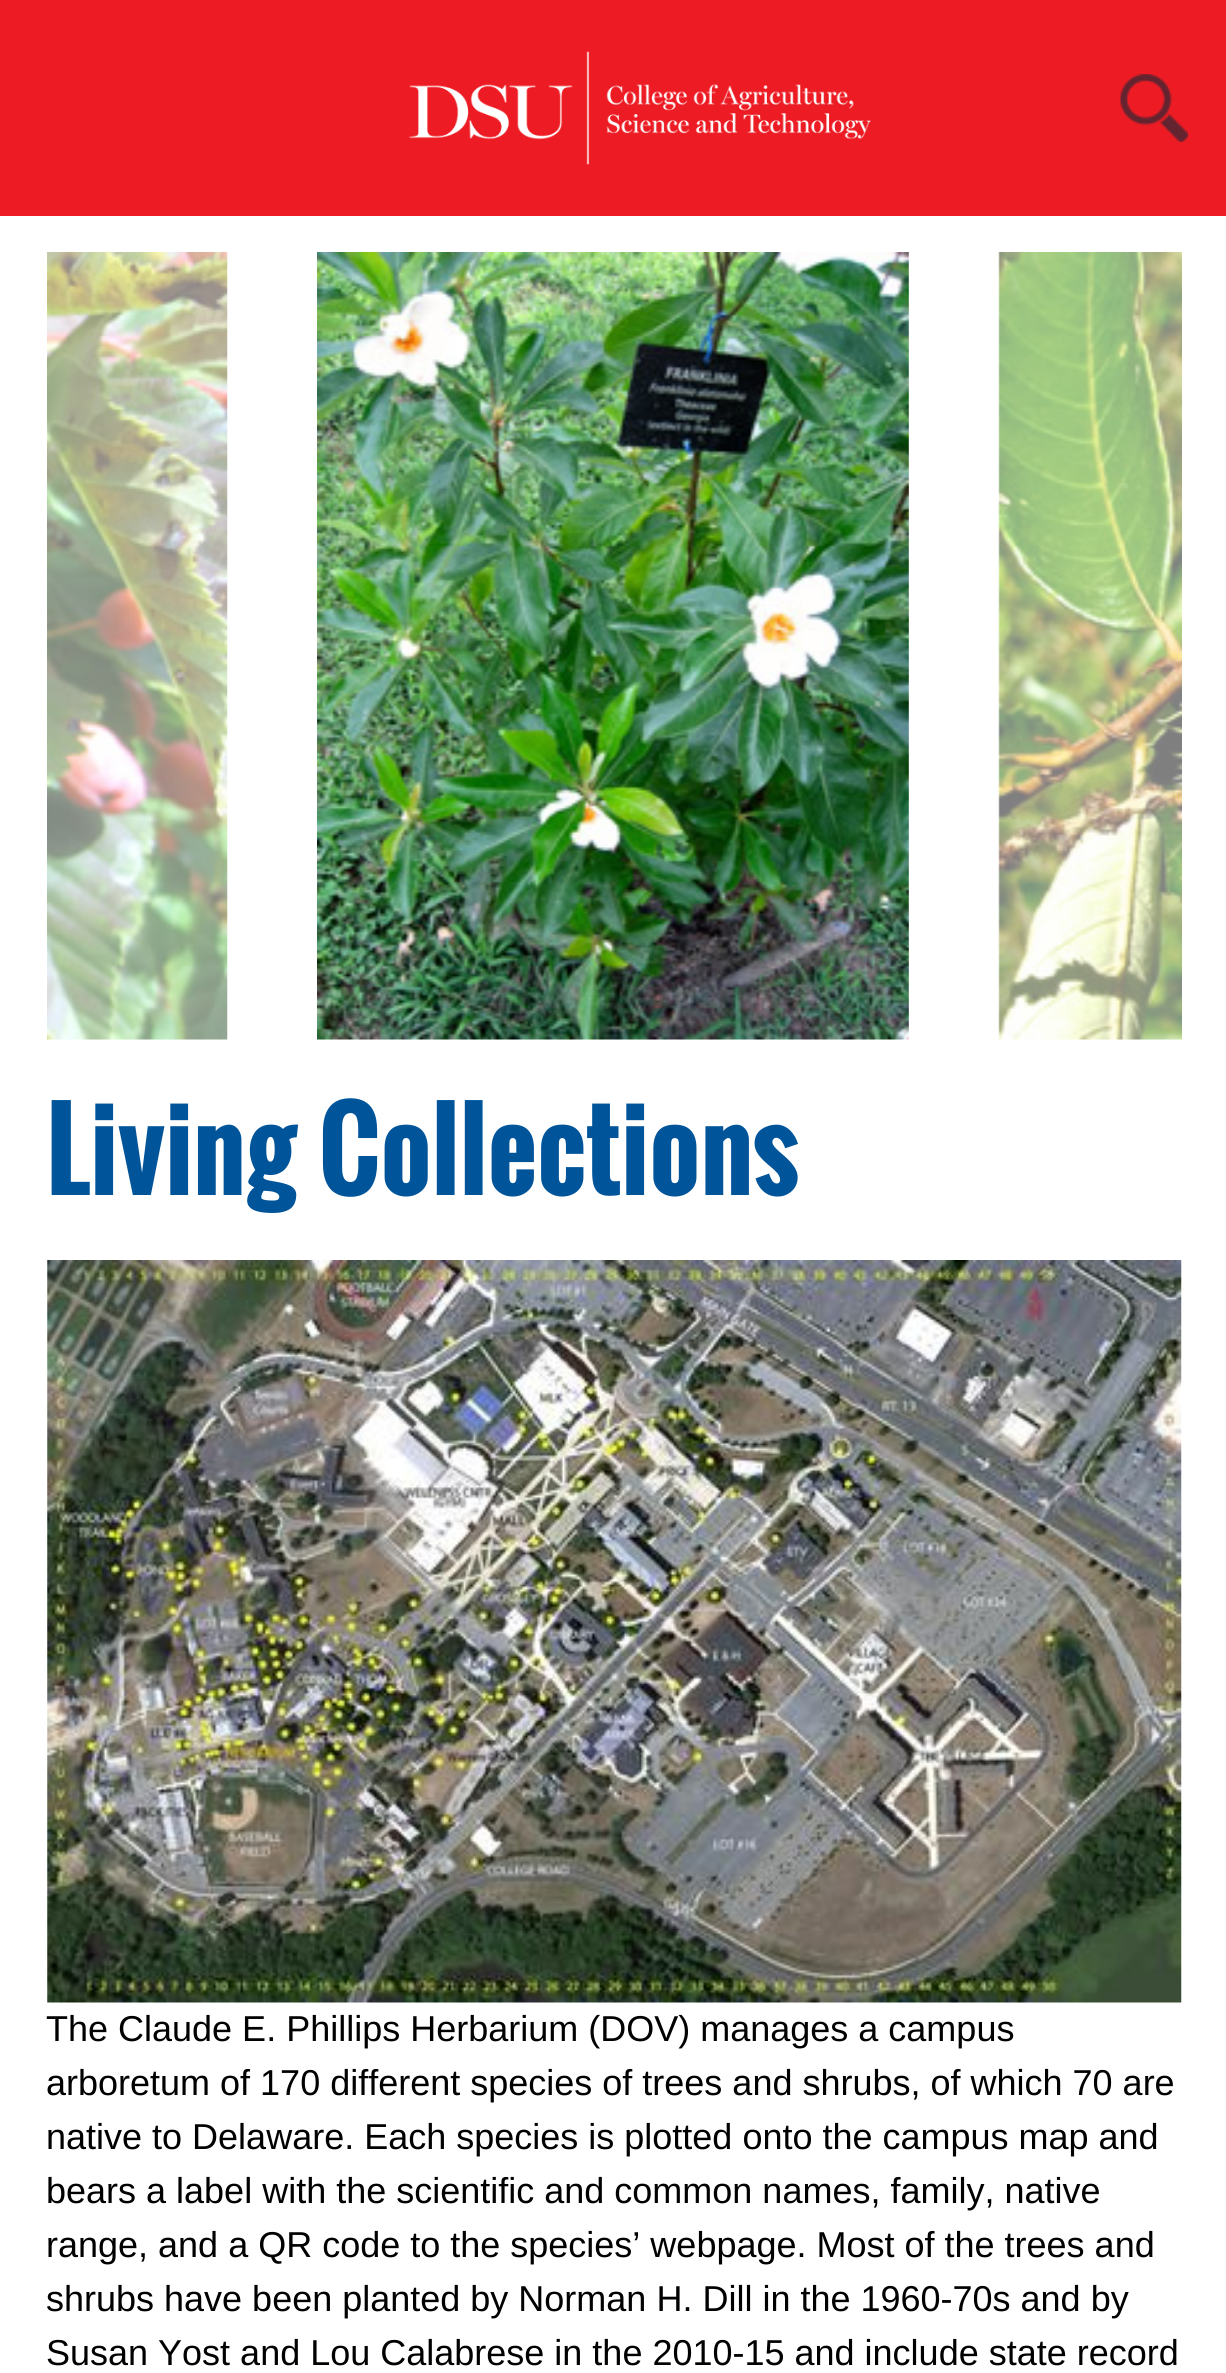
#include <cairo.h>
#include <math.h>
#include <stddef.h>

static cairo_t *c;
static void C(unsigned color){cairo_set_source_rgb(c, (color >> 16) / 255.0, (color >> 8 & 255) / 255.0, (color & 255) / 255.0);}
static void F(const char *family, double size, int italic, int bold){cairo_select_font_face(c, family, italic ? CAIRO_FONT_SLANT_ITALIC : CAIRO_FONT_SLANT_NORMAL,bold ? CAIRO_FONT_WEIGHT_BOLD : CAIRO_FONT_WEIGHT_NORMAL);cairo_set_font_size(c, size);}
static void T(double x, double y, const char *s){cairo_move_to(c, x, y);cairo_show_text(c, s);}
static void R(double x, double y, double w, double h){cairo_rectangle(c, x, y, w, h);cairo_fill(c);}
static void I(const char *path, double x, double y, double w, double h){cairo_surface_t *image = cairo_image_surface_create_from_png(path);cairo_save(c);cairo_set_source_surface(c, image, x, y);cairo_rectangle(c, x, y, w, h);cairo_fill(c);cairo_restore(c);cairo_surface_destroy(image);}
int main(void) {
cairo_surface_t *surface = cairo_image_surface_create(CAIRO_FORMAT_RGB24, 1226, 2373);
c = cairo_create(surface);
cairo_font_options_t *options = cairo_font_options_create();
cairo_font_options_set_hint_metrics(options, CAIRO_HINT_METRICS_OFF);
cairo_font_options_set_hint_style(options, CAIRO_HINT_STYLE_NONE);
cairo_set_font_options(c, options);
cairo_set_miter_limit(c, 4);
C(0xffffff);
cairo_paint(c);
C(0xed1c24);
R(0,0,1226,216);
I("1.png",409,51,462,114);
I("2.png",1120,74,68,68);
I("3.png",47,252,181,788);
I("4.png",317,252,592,788);
I("5.png",998,252,184,788);
F("Oswald",108,0,1);
C(0x00549a);
T(46,1195,"Living Collections");
I("6.png",47,1260,1135,743);
F("Liberation Sans",36,0,0);
C(0x000000);
T(46,2041,"The Claude E. Phillips Herbarium (DOV) manages a campus");
T(46,2095,"arboretum of 170 different species of trees and shrubs, of which 70 are");
T(46,2149,"native to Delaware. Each species is plotted onto the campus map and");
T(46,2203,"bears a label with the scientific and common names, family, native");
T(46,2257,"range, and a QR code to the species’ webpage. Most of the trees and");
T(46,2311,"shrubs have been planted by Norman H. Dill in the 1960-70s and by");
T(46,2365,"Susan Yost and Lou Calabrese in the 2010-15 and include state record");
cairo_surface_write_to_png(surface, "o.png");
cairo_font_options_destroy(options);
cairo_destroy(c);
cairo_surface_destroy(surface);
return 0;
}
